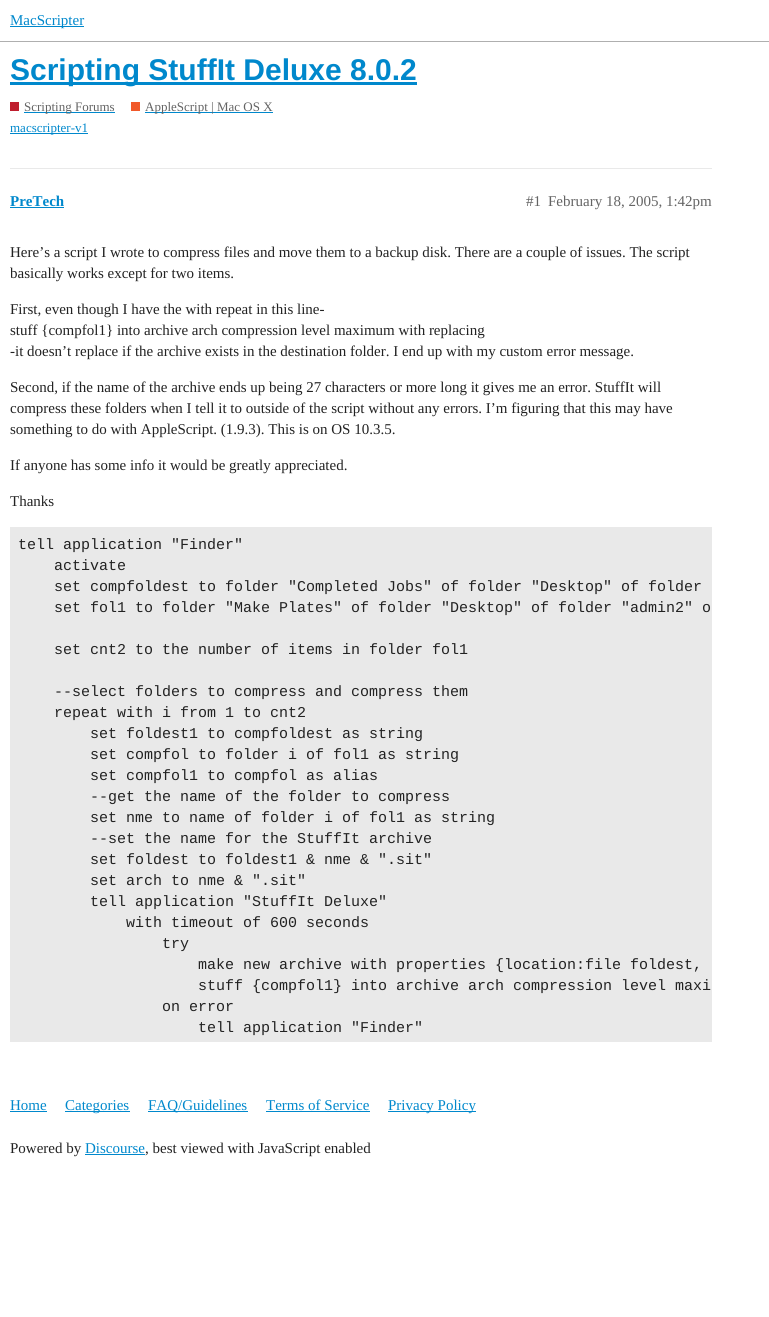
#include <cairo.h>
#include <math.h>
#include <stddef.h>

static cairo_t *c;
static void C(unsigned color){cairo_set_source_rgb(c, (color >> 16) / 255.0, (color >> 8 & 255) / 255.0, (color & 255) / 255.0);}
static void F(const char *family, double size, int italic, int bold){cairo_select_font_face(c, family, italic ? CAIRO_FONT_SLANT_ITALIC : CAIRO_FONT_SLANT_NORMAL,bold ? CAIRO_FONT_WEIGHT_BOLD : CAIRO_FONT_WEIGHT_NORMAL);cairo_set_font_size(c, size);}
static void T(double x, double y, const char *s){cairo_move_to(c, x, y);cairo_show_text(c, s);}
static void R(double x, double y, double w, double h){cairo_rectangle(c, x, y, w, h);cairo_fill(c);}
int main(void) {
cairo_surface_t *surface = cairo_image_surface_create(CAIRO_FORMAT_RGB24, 769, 1317);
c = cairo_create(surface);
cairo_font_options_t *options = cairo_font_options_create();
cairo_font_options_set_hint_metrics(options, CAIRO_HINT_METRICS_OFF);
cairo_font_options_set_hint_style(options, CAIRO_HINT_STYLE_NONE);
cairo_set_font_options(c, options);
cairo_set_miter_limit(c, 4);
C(0xffffff);
cairo_paint(c);
C(0xafafaf);
R(0,41,769,1);
C(0x0088cc);
R(10,26,74,1);
F("Liberation Serif",15,0,0);
T(10,25,"MacScripter");
R(10,82,407,3);
F("Liberation Sans",30,0,1);
T(10,80,"Scripting StuffIt Deluxe 8.0.2");
C(0xbf1e2e);
R(10,102,9,9);
C(0x0088cc);
R(24,112,91,1);
F("Liberation Serif",13,0,0);
C(0x646464);
T(24,111,"Scripting Forums");
C(0xf1592a);
R(131,102,9,9);
C(0x0088cc);
R(145,112,128,1);
C(0x646464);
T(145,111,"AppleScript | Mac OS X");
C(0x0088cc);
R(10,133,78,1);
T(10,132,"macscripter-v1");
C(0xe9e9e9);
R(10,168,702,1);
F("Liberation Serif",15,0,1);
C(0x0088cc);
T(10,206,"PreTech");
R(10,207,54,1);
F("Liberation Serif",15,0,0);
C(0x646464);
T(526,206,"#1");
T(548,206,"February 18, 2005, 1:42pm");
C(0x222222);
T(10,257,"Here’s a script I wrote to compress files and move them to a backup disk. There are a couple of issues. The script");
T(10,278,"basically works except for two items.");
T(10,314,"First, even though I have the with repeat in this line-");
T(10,335,"stuff {compfol1} into archive arch compression level maximum with replacing");
T(10,356,"-it doesn’t replace if the archive exists in the destination folder. I end up with my custom error message.");
T(10,392,"Second, if the name of the archive ends up being 27 characters or more long it gives me an error. StuffIt will");
T(10,413,"compress these folders when I tell it to outside of the script without any errors. I’m figuring that this may have");
T(10,434,"something to do with AppleScript. (1.9.3). This is on OS 10.3.5.");
T(10,470,"If anyone has some info it would be greatly appreciated.");
T(10,506,"Thanks");
C(0xe9e9e9);
R(10,527,702,515);
F("Liberation Mono",15,0,0);
C(0x222222);
T(18,549,"tell application \"Finder\"");
T(54,570,"activate");
T(54,591,"set compfoldest to folder \"Completed Jobs\" of folder \"Desktop\" of folder");
T(54,612,"set fol1 to folder \"Make Plates\" of folder \"Desktop\" of folder \"admin2\" o");
T(54,654,"set cnt2 to the number of items in folder fol1");
T(54,696,"--select folders to compress and compress them");
T(54,717,"repeat with i from 1 to cnt2");
T(90,738,"set foldest1 to compfoldest as string");
T(90,759,"set compfol to folder i of fol1 as string");
T(90,780,"set compfol1 to compfol as alias");
T(90,801,"--get the name of the folder to compress");
T(90,822,"set nme to name of folder i of fol1 as string");
T(90,843,"--set the name for the StuffIt archive");
T(90,864,"set foldest to foldest1 & nme & \".sit\"");
T(90,885,"set arch to nme & \".sit\"");
T(90,906,"tell application \"StuffIt Deluxe\"");
T(126,927,"with timeout of 600 seconds");
T(162,948,"try");
T(198,969,"make new archive with properties {location:file foldest,");
T(198,990,"stuff {compfol1} into archive arch compression level maxi");
T(162,1011,"on error");
T(198,1032,"tell application \"Finder\"");
F("Liberation Serif",15,0,0);
C(0x0088cc);
T(10,1110,"Home");
R(10,1111,37,1);
R(65,1111,65,1);
T(65,1110,"Categories");
R(148,1111,100,1);
T(148,1110,"FAQ/Guidelines");
T(266,1110,"Terms of Service");
R(266,1111,104,1);
R(388,1111,88,1);
T(388,1110,"Privacy Policy");
C(0x222222);
T(10,1153,"Powered by");
C(0x0088cc);
T(85,1153,"Discourse");
R(85,1154,60,1);
C(0x222222);
T(145,1153,", best viewed with JavaScript enabled");
cairo_surface_write_to_png(surface, "o.png");
cairo_font_options_destroy(options);
cairo_destroy(c);
cairo_surface_destroy(surface);
return 0;
}
